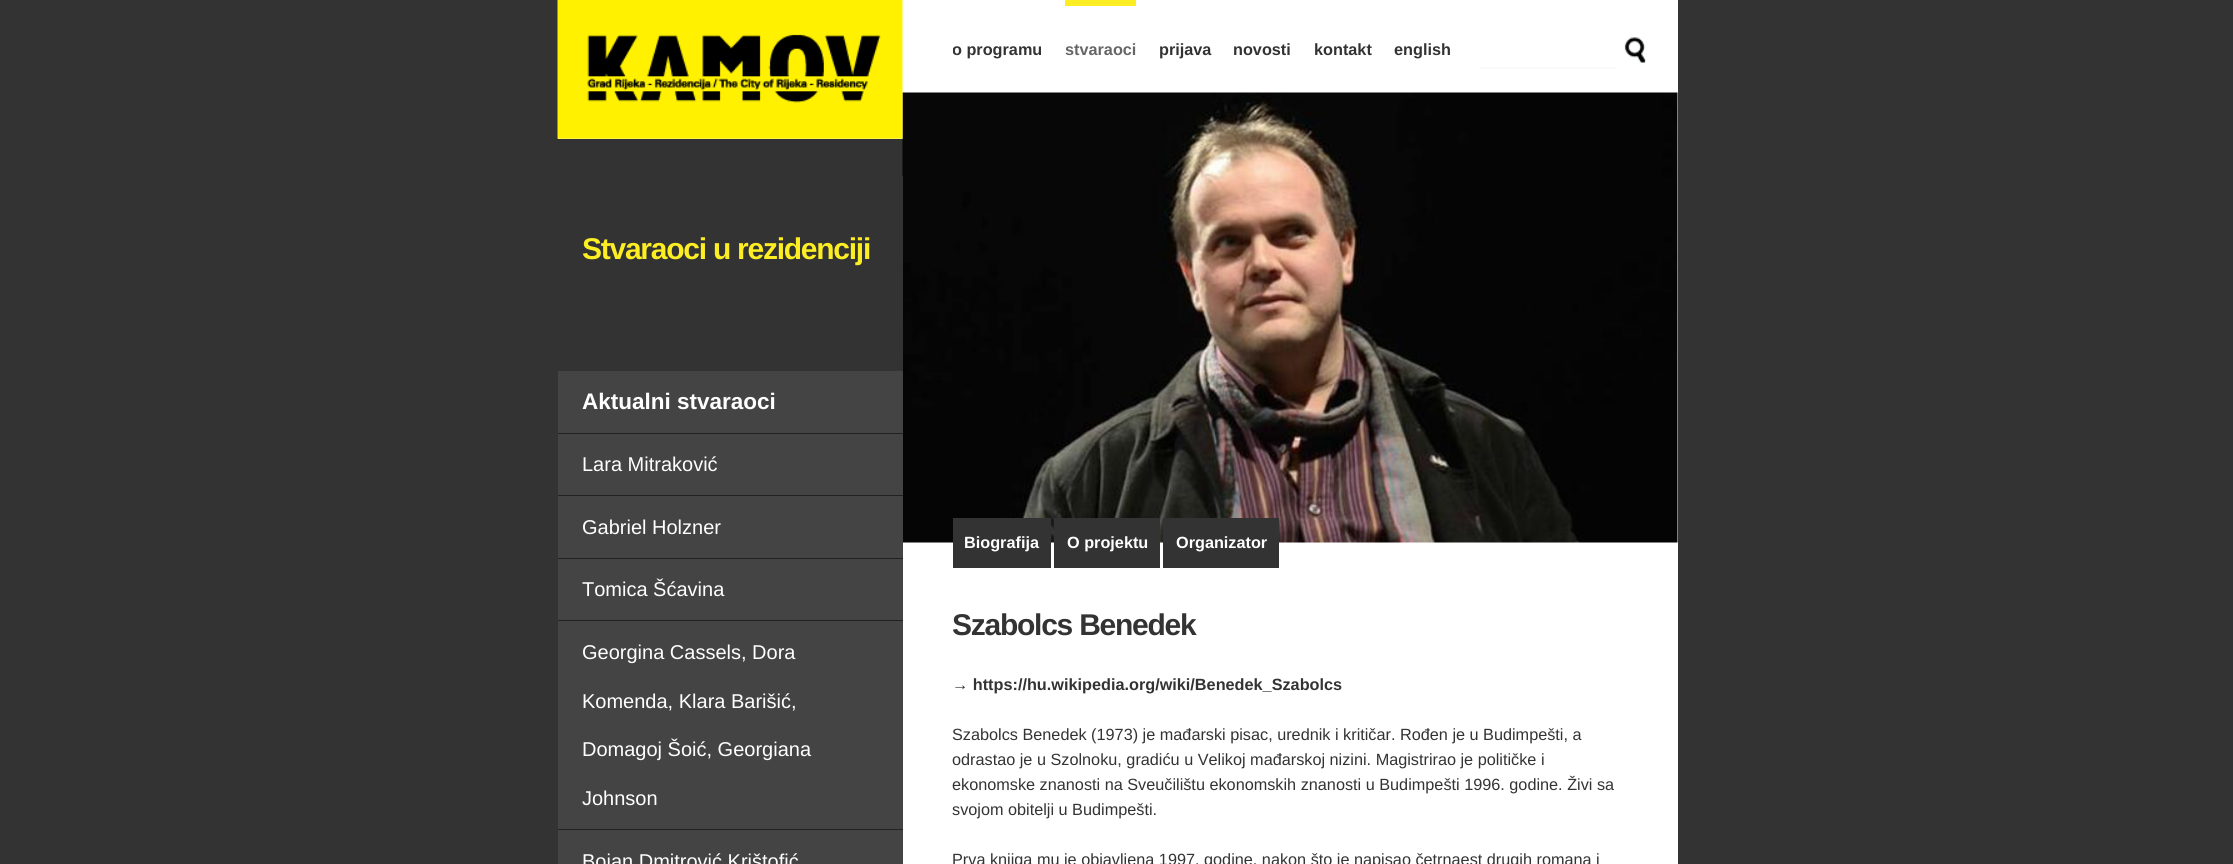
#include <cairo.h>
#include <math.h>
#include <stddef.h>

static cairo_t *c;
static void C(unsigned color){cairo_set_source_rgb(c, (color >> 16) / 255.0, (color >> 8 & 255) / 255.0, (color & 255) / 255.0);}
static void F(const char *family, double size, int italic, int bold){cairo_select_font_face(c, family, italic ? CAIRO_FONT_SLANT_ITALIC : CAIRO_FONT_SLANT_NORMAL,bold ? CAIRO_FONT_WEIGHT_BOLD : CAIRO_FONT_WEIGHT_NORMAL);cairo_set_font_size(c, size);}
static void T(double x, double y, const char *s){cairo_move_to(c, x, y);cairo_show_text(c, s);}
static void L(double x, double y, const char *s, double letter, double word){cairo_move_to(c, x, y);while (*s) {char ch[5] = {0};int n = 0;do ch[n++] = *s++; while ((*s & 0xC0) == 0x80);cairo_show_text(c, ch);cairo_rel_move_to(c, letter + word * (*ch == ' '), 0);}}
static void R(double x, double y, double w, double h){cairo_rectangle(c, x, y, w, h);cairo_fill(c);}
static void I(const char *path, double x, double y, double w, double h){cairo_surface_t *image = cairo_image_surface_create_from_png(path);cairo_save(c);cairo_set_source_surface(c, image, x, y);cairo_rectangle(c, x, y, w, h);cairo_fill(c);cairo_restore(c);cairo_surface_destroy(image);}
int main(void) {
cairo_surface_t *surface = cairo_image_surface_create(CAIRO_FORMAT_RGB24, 2233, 864);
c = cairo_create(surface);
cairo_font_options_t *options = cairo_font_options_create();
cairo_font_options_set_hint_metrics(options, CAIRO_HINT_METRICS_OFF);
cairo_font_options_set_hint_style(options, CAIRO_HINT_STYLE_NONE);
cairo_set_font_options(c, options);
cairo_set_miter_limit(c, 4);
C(0x333333);
cairo_paint(c);
C(0xffffff);
R(558,0,1120,139);
R(903,139,775,725);
I("3.png",902,92,776,451);
I("1.png",557,0,346,139);
cairo_save(c);
cairo_rectangle(c,953,0,498,63);
cairo_clip(c);
F("Liberation Sans",16.25,0,1);
C(0x333333);
T(952,55,"o programu");
cairo_restore(c);
C(0xfcee23);
R(1065,0,71,6);
F("Liberation Sans",16.25,0,1);
C(0x666666);
T(1065,55,"stvaraoci");
C(0x333333);
T(1159,55,"prijava");
T(1233,55,"novosti");
T(1314,55,"kontakt");
T(1394,55,"english");
I("2.png",1624,37,22,26);
cairo_new_path(c);
cairo_move_to(c,1480,68);
cairo_line_to(c,1617.5,68);
C(0xeeeeee);
cairo_set_line_width(c,1.2);
cairo_set_dash(c,(double[]){1.25,1.25},2,0);
cairo_stroke(c);
C(0x333333);
R(902,176,1,195);
F("Liberation Sans",30,0,1);
C(0xfcee23);
L(582,259,"Stvaraoci u rezidenciji",-1.25,0);
C(0x444444);
R(558,371,345,62);
C(0x222222);
R(558,433,345,1);
F("Liberation Sans",22.5,0,1);
C(0xffffff);
T(582,409,"Aktualni stvaraoci");
C(0x444444);
R(558,434,345,61);
C(0x222222);
R(558,495,345,1);
F("Liberation Sans",20,0,0);
C(0xffffff);
T(582,471,"Lara Mitraković");
C(0x444444);
R(558,496,345,62);
C(0x222222);
R(558,558,345,1);
C(0xffffff);
T(582,534,"Gabriel Holzner");
C(0x444444);
R(558,559,345,61);
C(0x222222);
R(558,620,345,1);
C(0xffffff);
T(582,596,"Tomica Šćavina");
C(0x444444);
R(558,621,345,208);
C(0x222222);
R(558,829,345,1);
C(0xffffff);
T(582,659,"Georgina Cassels, Dora");
T(582,708,"Komenda, Klara Barišić,");
T(582,756,"Domagoj Šoić, Georgiana");
T(582,805,"Johnson");
C(0x444444);
R(558,830,345,34);
C(0xffffff);
T(582,868,"Bojan Dmitrović Krištofić");
C(0x333333);
R(953,518,98,50);
F("Liberation Sans",16.25,0,1);
C(0xffffff);
T(964,548,"Biografija");
C(0x333333);
R(1054,518,106,50);
C(0xffffff);
T(1067,548,"O projektu");
C(0x333333);
R(1163,518,116,50);
C(0xffffff);
T(1176,548,"Organizator");
F("Liberation Sans",30,0,1);
C(0x333333);
L(952,635,"Szabolcs Benedek",-1.25,0);
F("Liberation Sans",16.25,0,1);
T(952,690,"→ https://hu.wikipedia.org/wiki/Benedek_Szabolcs");
F("Liberation Sans",16.25,0,0);
T(952,740,"Szabolcs Benedek (1973) je mađarski pisac, urednik i kritičar. Rođen je u Budimpešti, a");
T(952,765,"odrastao je u Szolnoku, gradiću u Velikoj mađarskoj nizini. Magistrirao je političke i");
T(952,790,"ekonomske znanosti na Sveučilištu ekonomskih znanosti u Budimpešti 1996. godine. Živi sa");
T(952,815,"svojom obitelji u Budimpešti.");
T(952,865,"Prva knjiga mu je objavljena 1997. godine, nakon što je napisao četrnaest drugih romana i");
cairo_surface_write_to_png(surface, "o.png");
cairo_font_options_destroy(options);
cairo_destroy(c);
cairo_surface_destroy(surface);
return 0;
}
